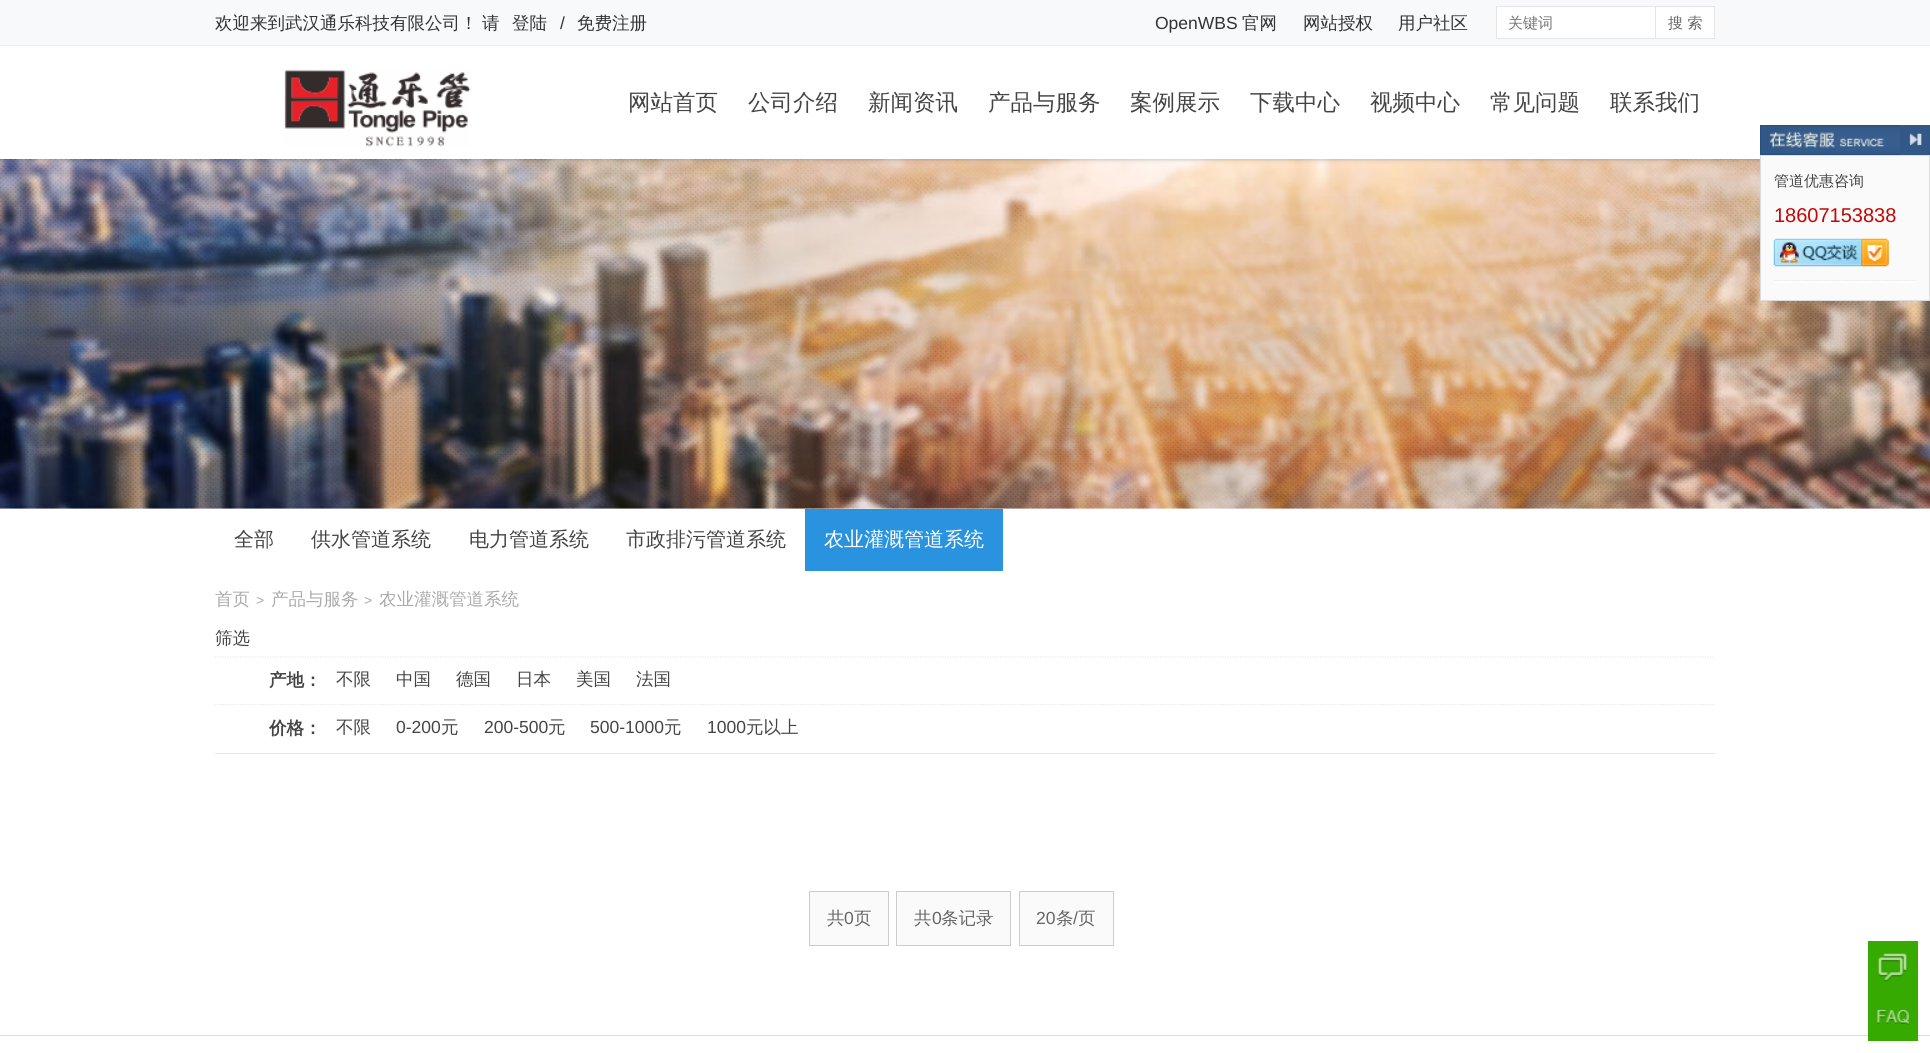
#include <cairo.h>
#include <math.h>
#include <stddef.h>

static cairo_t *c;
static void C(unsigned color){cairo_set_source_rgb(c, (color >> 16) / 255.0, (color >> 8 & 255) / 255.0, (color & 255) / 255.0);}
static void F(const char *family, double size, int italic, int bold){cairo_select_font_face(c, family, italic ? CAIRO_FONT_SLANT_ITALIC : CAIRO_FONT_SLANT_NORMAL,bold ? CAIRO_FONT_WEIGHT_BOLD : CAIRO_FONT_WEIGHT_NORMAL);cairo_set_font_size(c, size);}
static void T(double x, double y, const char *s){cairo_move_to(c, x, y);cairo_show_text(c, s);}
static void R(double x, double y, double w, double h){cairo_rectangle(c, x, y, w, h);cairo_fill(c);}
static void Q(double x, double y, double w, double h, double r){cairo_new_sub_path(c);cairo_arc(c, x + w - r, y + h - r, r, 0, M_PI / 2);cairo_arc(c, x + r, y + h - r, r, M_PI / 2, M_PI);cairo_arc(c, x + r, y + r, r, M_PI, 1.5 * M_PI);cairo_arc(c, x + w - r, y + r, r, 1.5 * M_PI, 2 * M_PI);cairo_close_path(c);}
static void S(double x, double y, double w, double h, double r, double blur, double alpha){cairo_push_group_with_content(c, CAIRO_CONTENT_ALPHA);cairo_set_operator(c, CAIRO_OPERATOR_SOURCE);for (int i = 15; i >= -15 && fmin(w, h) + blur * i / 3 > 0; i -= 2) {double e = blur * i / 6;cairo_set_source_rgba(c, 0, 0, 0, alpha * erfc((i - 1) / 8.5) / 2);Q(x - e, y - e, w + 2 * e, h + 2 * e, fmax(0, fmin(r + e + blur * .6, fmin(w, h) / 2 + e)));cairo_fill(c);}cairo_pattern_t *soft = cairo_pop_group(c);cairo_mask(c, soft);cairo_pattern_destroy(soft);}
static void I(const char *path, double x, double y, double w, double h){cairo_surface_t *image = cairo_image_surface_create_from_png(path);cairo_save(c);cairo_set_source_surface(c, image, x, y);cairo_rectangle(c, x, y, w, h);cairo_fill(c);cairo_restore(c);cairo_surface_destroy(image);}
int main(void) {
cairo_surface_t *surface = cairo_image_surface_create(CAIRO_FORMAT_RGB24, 1930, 1053);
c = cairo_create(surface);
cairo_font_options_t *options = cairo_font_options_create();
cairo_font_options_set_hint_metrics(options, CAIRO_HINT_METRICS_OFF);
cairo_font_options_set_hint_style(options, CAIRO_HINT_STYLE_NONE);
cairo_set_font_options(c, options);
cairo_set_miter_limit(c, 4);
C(0xffffff);
cairo_paint(c);
C(0xfcfcfc);
R(0,508,1930,1);
I("2.png",0,159,1930,350);
C(0x000000);
S(0,0,1930,159,0,2.5,.3);
C(0xffffff);
R(0,46,1930,113);
C(0xf7f9fa);
R(0,0,1930,45);
C(0xeeeeee);
R(0,45,1930,1);
F("WenQuanYi Zen Hei Medium",17.5,0,0);
C(0x333333);
T(215,29,"欢迎来到武汉通乐科技有限公司！");
T(482,29,"请");
T(512,29,"登陆");
F("Liberation Sans",17.5,0,0);
T(560,29,"/");
F("WenQuanYi Zen Hei Medium",17.5,0,0);
T(577,29,"免费注册");
F("Liberation Sans",17.5,0,0);
T(1155,29,"OpenWBS");
F("WenQuanYi Zen Hei Medium",17.5,0,0);
T(1242,29,"官网");
T(1303,29,"网站授权");
T(1398,29,"用户社区");
C(0xffffff);
R(1497,7,158,31);
C(0xe6e6e6);
R(1496,6,159,1);
R(1496,38,159,1);
R(1496,6,1,33);
F("WenQuanYi Zen Hei Medium",15,0,0);
C(0x757575);
T(1508,28,"关键词");
C(0xffffff);
cairo_rectangle(c,1655.5,6.5,59,32);
cairo_fill_preserve(c);
C(0xe6e6e6);
cairo_set_line_width(c,1);
cairo_stroke(c);
C(0x666666);
T(1668,28,"搜 索");
I("1.png",284,69,187,78);
F("WenQuanYi Zen Hei Medium",22.5,0,0);
C(0x444444);
T(628,110,"网站首页");
T(748,110,"公司介绍");
T(868,110,"新闻资讯");
T(988,110,"产品与服务");
T(1130,110,"案例展示");
T(1250,110,"下载中心");
T(1370,110,"视频中心");
T(1490,110,"常见问题");
T(1610,110,"联系我们");
I("3.png",1760,125,140,30);
I("4.png",1900,125,30,30);
C(0xfafafa);
cairo_rectangle(c,1760.5,155.5,169,145);
cairo_fill_preserve(c);
C(0xdddddd);
cairo_stroke(c);
C(0xffffff);
R(1774,281,142,2);
cairo_new_path(c);
cairo_move_to(c,1774,280.5);
cairo_line_to(c,1916,280.5);
C(0xe6e6e6);
cairo_set_line_width(c,1.2);
cairo_set_dash(c,(double[]){1.25,1.25},2,0);
cairo_stroke(c);
F("WenQuanYi Zen Hei Medium",15,0,0);
C(0x444444);
T(1774,186,"管道优惠咨询");
F("Liberation Sans",20,0,0);
C(0xc70505);
T(1774,222,"18607153838");
I("5.png",1773,238,116,29);
F("WenQuanYi Zen Hei Medium",20,0,0);
C(0x444444);
T(234,546,"全部");
T(311,546,"供水管道系统");
T(469,546,"电力管道系统");
T(626,546,"市政排污管道系统");
C(0x2993df);
R(805,509,198,62);
C(0xffffff);
T(824,546,"农业灌溉管道系统");
F("WenQuanYi Zen Hei Medium",17.5,0,0);
C(0xaaaaaa);
T(215,605,"首页");
F("Liberation Sans",14,0,0);
T(256,605,">");
F("WenQuanYi Zen Hei Medium",17.5,0,0);
T(271,605,"产品与服务");
F("Liberation Sans",14,0,0);
T(364,605,">");
F("WenQuanYi Zen Hei Medium",17.5,0,0);
T(379,605,"农业灌溉管道系统");
C(0xe6e6e6);
R(215,753,1500,1);
C(0x444444);
T(215,644,"筛选");
cairo_new_path(c);
cairo_move_to(c,215,657);
cairo_line_to(c,1715,657);
C(0xeee8e8);
cairo_stroke(c);
F("WenQuanYi Zen Hei",17.5,0,1);
C(0x444444);
T(269,686,"产地：");
F("WenQuanYi Zen Hei Medium",17.5,0,0);
T(336,685,"不限");
T(396,685,"中国");
T(456,685,"德国");
T(516,685,"日本");
T(576,685,"美国");
T(636,685,"法国");
cairo_new_path(c);
cairo_move_to(c,215,704.5);
cairo_line_to(c,1715,704.5);
C(0xeee8e8);
cairo_stroke(c);
F("WenQuanYi Zen Hei",17.5,0,1);
C(0x444444);
T(269,734,"价格：");
F("WenQuanYi Zen Hei Medium",17.5,0,0);
T(336,733,"不限");
F("Liberation Sans",17.5,0,0);
T(396,733,"0-200");
F("WenQuanYi Zen Hei Medium",17.5,0,0);
T(441,733,"元");
F("Liberation Sans",17.5,0,0);
T(484,733,"200-500");
F("WenQuanYi Zen Hei Medium",17.5,0,0);
T(548,733,"元");
F("Liberation Sans",17.5,0,0);
T(590,733,"500-1000");
F("WenQuanYi Zen Hei Medium",17.5,0,0);
T(664,733,"元");
F("Liberation Sans",17.5,0,0);
T(707,733,"1000");
F("WenQuanYi Zen Hei Medium",17.5,0,0);
T(746,733,"元以上");
C(0xfafafa);
cairo_rectangle(c,809.5,891.5,79,54);
cairo_fill_preserve(c);
C(0xcccccc);
cairo_set_line_width(c,1);
cairo_set_dash(c,NULL,0,0);
cairo_stroke(c);
C(0x666666);
T(827,924,"共");
F("Liberation Sans",17.5,0,0);
T(844,924,"0");
F("WenQuanYi Zen Hei Medium",17.5,0,0);
T(854,924,"页");
C(0xfafafa);
cairo_rectangle(c,896.5,891.5,114,54);
cairo_fill_preserve(c);
C(0xcccccc);
cairo_stroke(c);
C(0x666666);
T(914,924,"共");
F("Liberation Sans",17.5,0,0);
T(932,924,"0");
F("WenQuanYi Zen Hei Medium",17.5,0,0);
T(941,924,"条记录");
C(0xfafafa);
cairo_rectangle(c,1019.5,891.5,94,54);
cairo_fill_preserve(c);
C(0xcccccc);
cairo_stroke(c);
F("Liberation Sans",17.5,0,0);
C(0x666666);
T(1036,924,"20");
F("WenQuanYi Zen Hei Medium",17.5,0,0);
T(1056,924,"条");
F("Liberation Sans",17.5,0,0);
T(1073,924,"/");
F("WenQuanYi Zen Hei Medium",17.5,0,0);
T(1078,924,"页");
C(0xdddddd);
R(0,1035,1930,1);
C(0x36aa00);
R(1868,941,50,100);
I("6.png",1877,953,30,29);
I("7.png",1877,1009,33,16);
cairo_surface_write_to_png(surface, "o.png");
cairo_font_options_destroy(options);
cairo_destroy(c);
cairo_surface_destroy(surface);
return 0;
}
